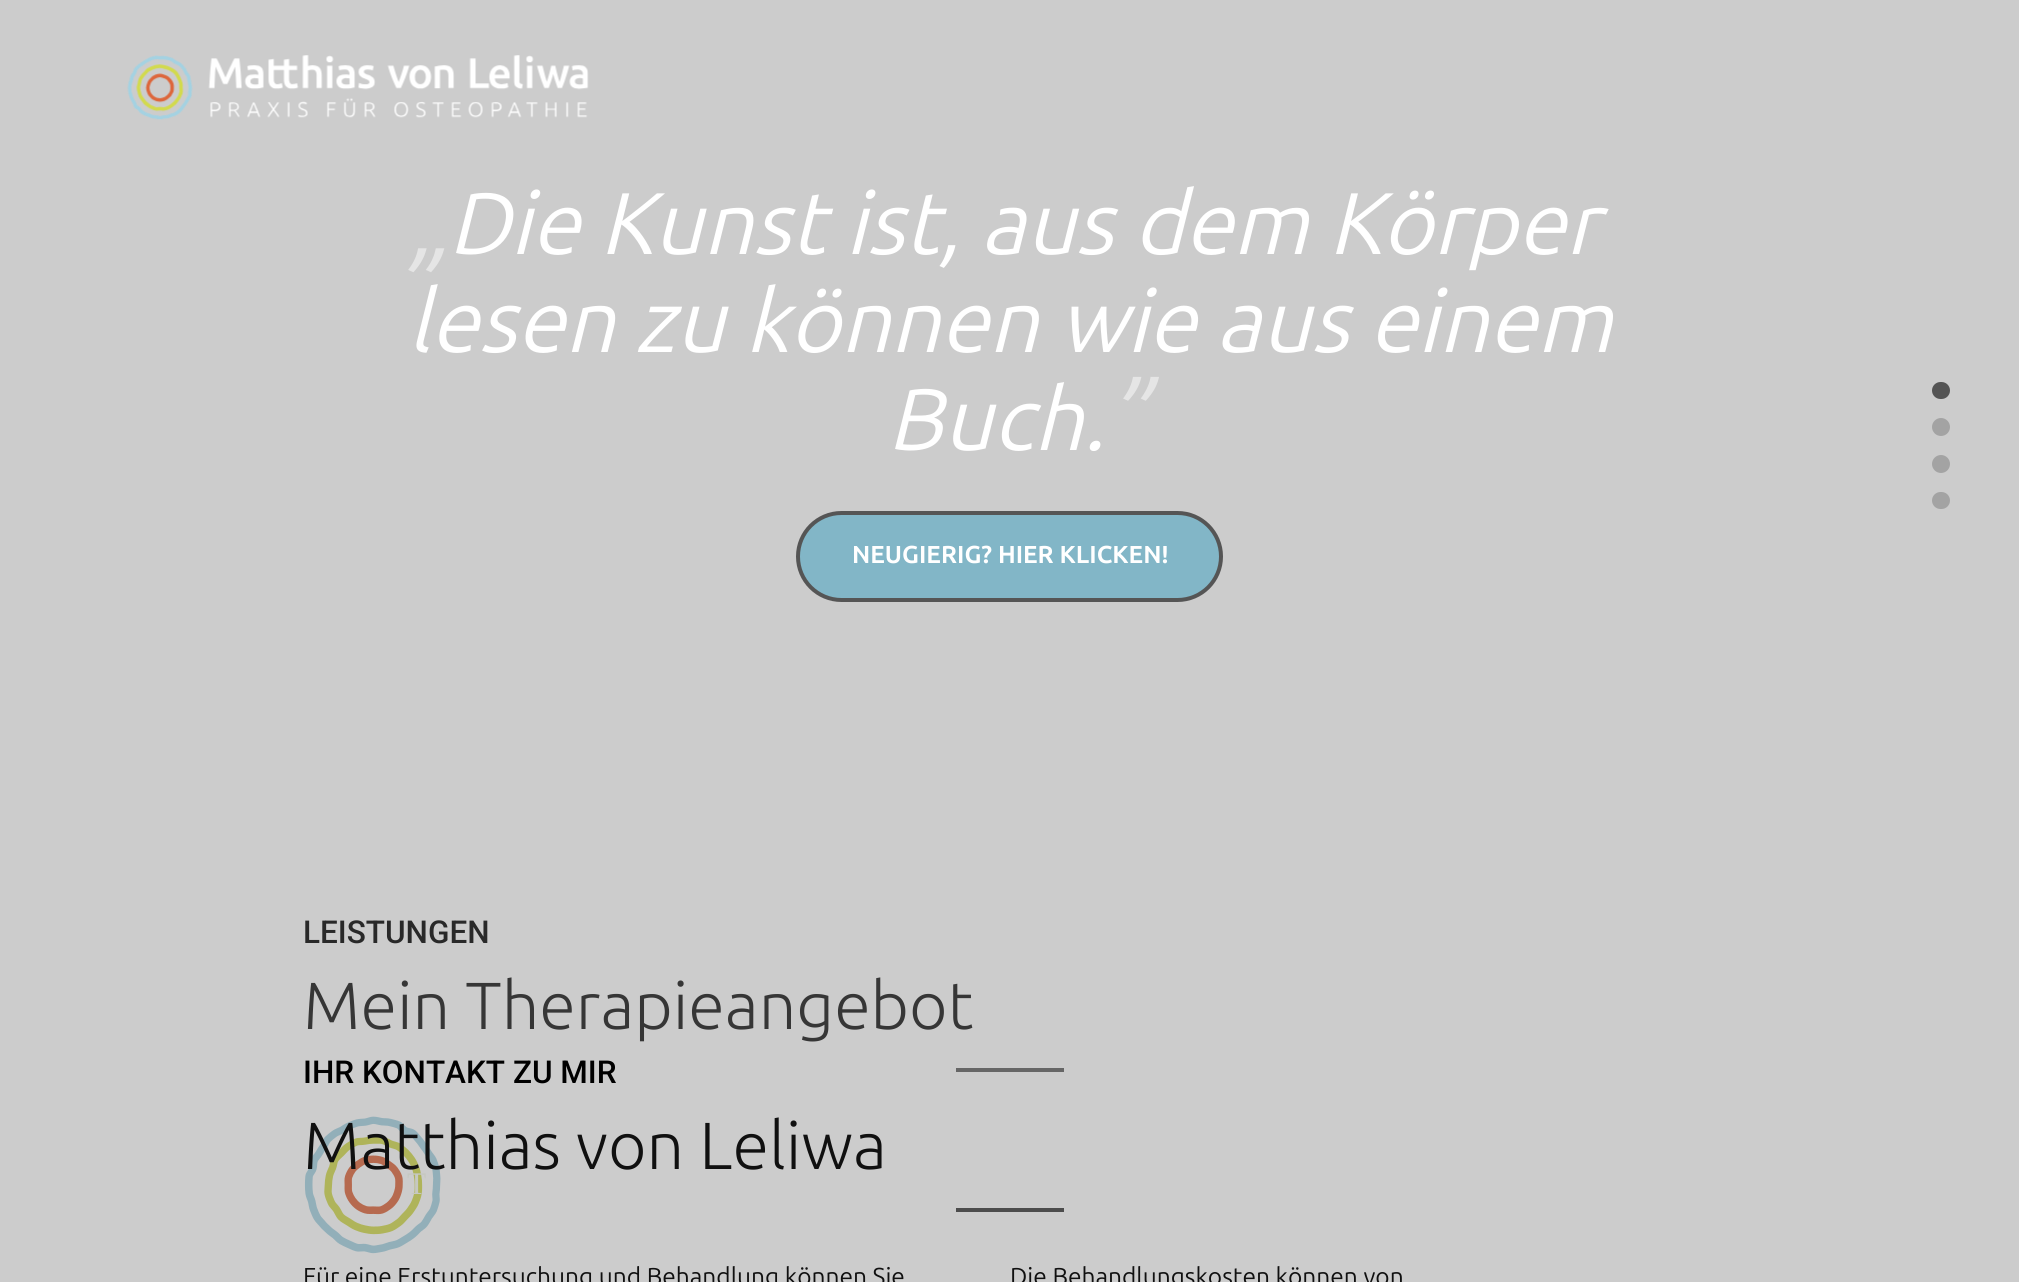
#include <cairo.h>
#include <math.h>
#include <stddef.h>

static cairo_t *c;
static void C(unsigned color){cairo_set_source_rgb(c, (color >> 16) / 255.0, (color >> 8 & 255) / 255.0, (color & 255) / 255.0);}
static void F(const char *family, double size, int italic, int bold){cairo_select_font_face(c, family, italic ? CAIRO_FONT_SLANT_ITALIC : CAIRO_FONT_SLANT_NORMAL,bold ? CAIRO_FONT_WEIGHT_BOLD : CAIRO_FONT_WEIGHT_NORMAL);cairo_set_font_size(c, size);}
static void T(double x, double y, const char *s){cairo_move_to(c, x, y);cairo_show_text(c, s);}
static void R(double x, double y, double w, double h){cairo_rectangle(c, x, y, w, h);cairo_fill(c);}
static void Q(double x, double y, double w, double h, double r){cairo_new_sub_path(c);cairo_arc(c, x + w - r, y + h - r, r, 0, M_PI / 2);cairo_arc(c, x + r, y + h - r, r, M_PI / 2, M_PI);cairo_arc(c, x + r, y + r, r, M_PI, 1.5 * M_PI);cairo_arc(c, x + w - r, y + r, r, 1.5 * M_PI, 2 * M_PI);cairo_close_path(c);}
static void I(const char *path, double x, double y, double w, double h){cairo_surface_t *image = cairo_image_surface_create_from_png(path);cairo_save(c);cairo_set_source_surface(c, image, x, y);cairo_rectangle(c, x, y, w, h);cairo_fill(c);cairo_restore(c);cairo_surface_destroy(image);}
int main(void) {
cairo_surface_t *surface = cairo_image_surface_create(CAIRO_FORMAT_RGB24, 2019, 1282);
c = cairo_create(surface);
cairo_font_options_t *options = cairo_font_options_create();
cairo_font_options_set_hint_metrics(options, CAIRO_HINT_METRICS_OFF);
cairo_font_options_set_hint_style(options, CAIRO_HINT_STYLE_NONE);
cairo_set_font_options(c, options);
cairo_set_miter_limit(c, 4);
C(0xcccccc);
cairo_paint(c);
I("1.png",127,55,462,65);
F("Ubuntu",105,1,0);
C(0xe5e5e5);
T(407,259,"„");
F("Ubuntu",87.5,1,0);
C(0xffffff);
T(448,254,"Die Kunst ist, aus dem Körper");
T(407,352,"lesen zu können wie aus einem");
T(887,450,"Buch.");
F("Ubuntu",105,1,0);
C(0xe5e5e5);
T(1105,455,"”");
C(0x82b6c7);
Q(798,513,423,87,43.5);
cairo_fill_preserve(c);
C(0x555555);
cairo_set_line_width(c,4);
cairo_stroke(c);
F("Ubuntu",24.5,0,1);
C(0xffffff);
T(852,563,"NEUGIERIG? HIER KLICKEN!");
F("Roboto Medium",31.5,0,0);
C(0x292929);
T(303,943,"LEISTUNGEN");
F("Ubuntu Light",66.5,0,0);
C(0x363636);
T(303,1029,"Mein Therapieangebot");
C(0x666666);
R(956,1068,108,4);
I("2.png",304,1116,137,138);
F("Liberation Serif",31.5,0,0);
C(0xc6c8c1);
T(407,1194,"T");
F("Roboto Medium",31.5,0,0);
C(0x000000);
T(303,1083,"IHR KONTAKT ZU MIR");
F("Ubuntu Light",66.5,0,0);
C(0x101010);
T(303,1169,"Matthias von Leliwa");
C(0x4c4c4c);
R(956,1208,108,4);
F("Ubuntu",24.5,0,0);
C(0x101010);
T(303,1285,"Für eine Erstuntersuchung und Behandlung können Sie");
T(1010,1285,"Die Behandlungskosten können von");
C(0x545454);
Q(1932,382,18,17,8.5);
cairo_fill(c);
C(0xa3a3a3);
cairo_arc(c,1941,427,9,0,2 * M_PI);
cairo_fill(c);
cairo_arc(c,1941,464,9,0,2 * M_PI);
cairo_fill(c);
Q(1932,492,18,17,8.5);
cairo_fill(c);
cairo_surface_write_to_png(surface, "o.png");
cairo_font_options_destroy(options);
cairo_destroy(c);
cairo_surface_destroy(surface);
return 0;
}
